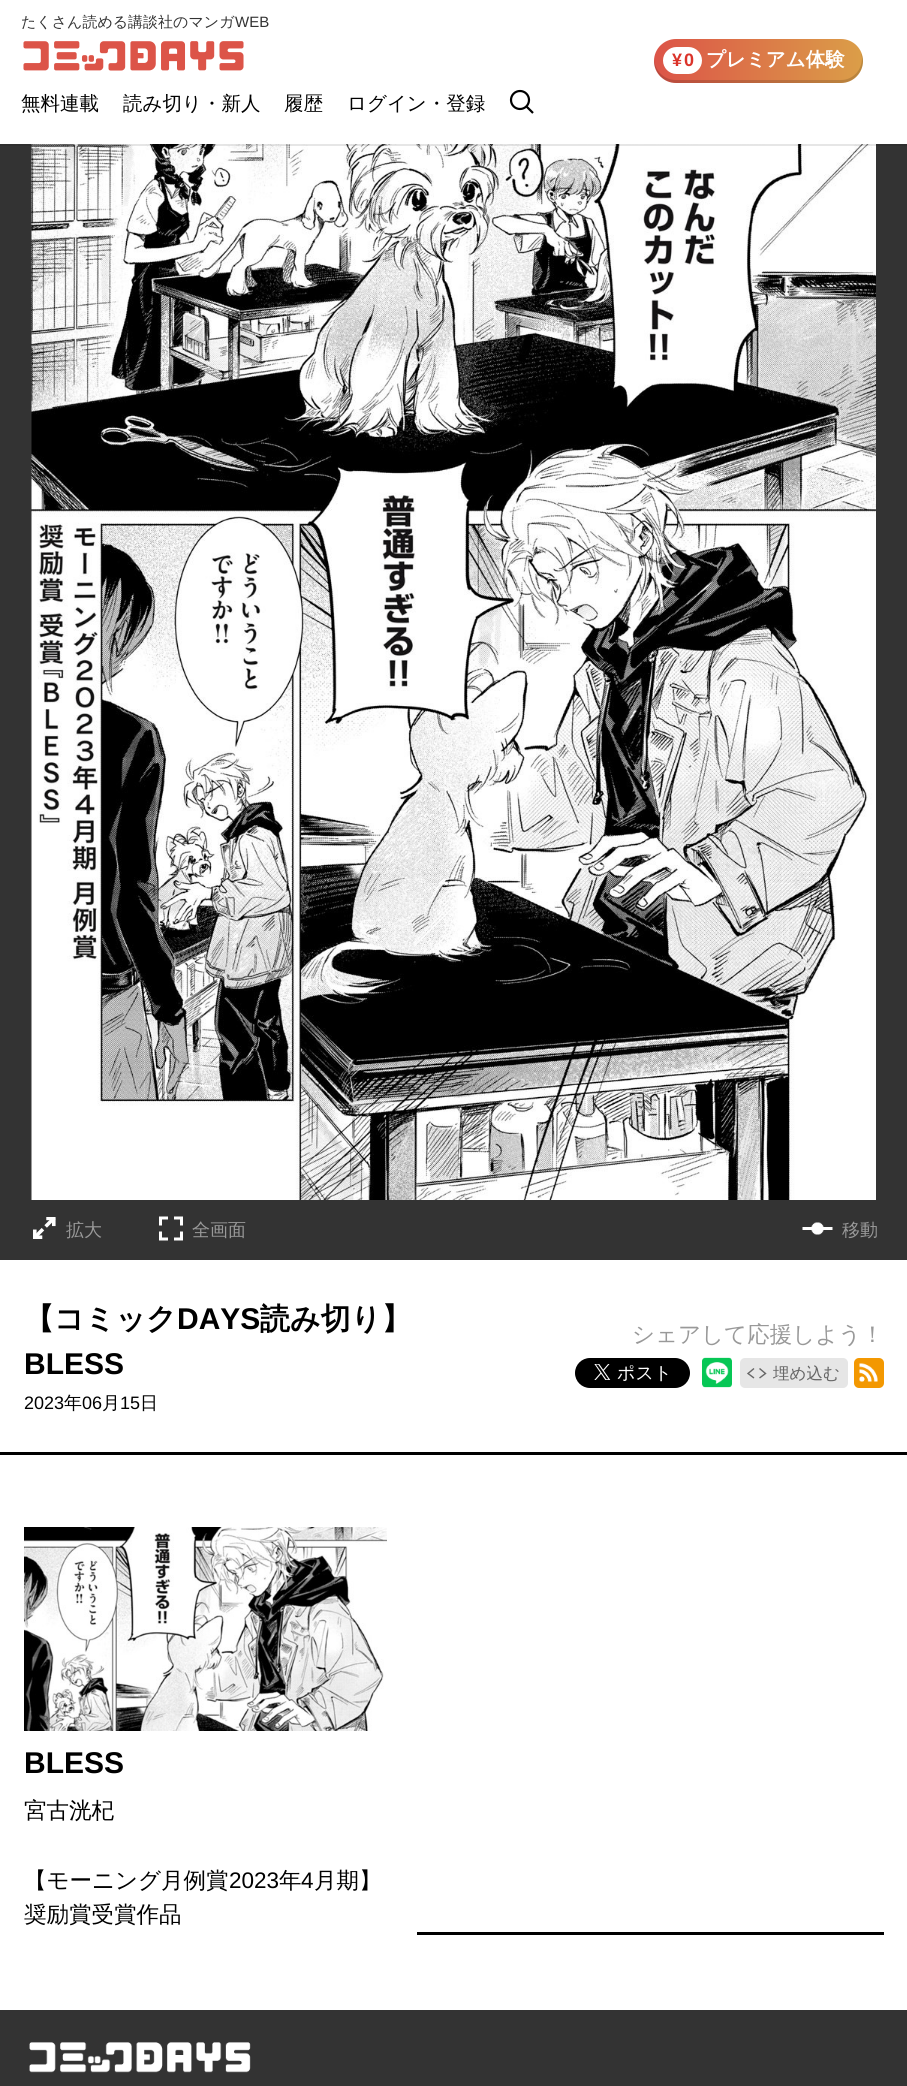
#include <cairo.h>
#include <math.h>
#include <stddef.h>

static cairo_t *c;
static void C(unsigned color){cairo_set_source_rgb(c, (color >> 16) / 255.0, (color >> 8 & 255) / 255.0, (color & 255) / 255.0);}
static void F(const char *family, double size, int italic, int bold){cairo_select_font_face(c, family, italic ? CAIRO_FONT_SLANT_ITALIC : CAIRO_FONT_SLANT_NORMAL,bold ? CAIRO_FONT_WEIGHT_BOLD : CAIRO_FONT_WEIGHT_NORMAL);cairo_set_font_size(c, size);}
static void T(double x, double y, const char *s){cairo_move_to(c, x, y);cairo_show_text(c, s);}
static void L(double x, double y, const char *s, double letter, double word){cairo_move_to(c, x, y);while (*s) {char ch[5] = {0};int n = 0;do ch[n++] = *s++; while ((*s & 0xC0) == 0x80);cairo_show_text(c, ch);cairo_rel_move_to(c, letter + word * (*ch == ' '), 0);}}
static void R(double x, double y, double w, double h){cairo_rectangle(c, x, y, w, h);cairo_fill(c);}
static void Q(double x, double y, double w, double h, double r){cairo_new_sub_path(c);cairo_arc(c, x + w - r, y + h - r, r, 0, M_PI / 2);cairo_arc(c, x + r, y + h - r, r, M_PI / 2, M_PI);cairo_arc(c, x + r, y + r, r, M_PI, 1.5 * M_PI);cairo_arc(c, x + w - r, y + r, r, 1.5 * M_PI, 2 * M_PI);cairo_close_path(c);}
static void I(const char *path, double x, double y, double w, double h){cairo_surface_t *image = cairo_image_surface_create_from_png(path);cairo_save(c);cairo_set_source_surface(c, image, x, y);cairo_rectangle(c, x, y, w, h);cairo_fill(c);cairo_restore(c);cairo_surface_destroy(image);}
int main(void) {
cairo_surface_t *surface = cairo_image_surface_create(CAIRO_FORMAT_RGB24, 907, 2086);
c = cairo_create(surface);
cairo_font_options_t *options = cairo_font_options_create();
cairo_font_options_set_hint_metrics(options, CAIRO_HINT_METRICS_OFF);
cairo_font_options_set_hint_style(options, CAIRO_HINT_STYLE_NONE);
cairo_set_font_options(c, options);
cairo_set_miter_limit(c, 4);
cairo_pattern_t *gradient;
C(0xffffff);
cairo_paint(c);
C(0x333333);
R(0,144,907,1116);
I("2.png",31,144,845,1056);
cairo_set_source_rgba(c,0,0,0,0.1);
cairo_new_path(c);
cairo_move_to(c,0,144);
cairo_line_to(c,0,146);
cairo_line_to(c,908,146);
cairo_line_to(c,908,2);
cairo_line_to(c,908,144);
cairo_close_path(c);
cairo_fill(c);
F("WenQuanYi Zen Hei Medium",15,0,0);
C(0x333333);
T(21,27,"たくさん読める講談社のマンガ");
F("Liberation Sans",15,0,0);
T(235,27,"WEB");
I("1.png",23,41,221,30);
gradient = cairo_pattern_create_linear(654,61,863,61);
cairo_pattern_add_color_stop_rgba(gradient,0,0.863,0.329,0.282,1);
cairo_pattern_add_color_stop_rgba(gradient,1,0.859,0.62,0.282,1);
cairo_set_source(c,gradient);
cairo_pattern_destroy(gradient);
Q(654,39,209,44,22);
cairo_fill(c);
cairo_set_source_rgba(c,0,0,0,0.15);
cairo_new_path(c);
cairo_move_to(c,654,59);
cairo_line_to(c,654,61);
cairo_curve_to(c,654,73,664,83,676,83);
cairo_line_to(c,841,83);
cairo_curve_to(c,853,83,863,73,863,61);
cairo_curve_to(c,863,58,862,55,861,53);
cairo_line_to(c,862,58);
cairo_curve_to(c,862,70,853,80,841,80);
cairo_line_to(c,676,80);
cairo_curve_to(c,664,80,655,71,654,59);
cairo_close_path(c);
cairo_fill(c);
C(0xffffff);
Q(663,47,39,27,13.5);
cairo_fill(c);
F("Liberation Sans",18,0,1);
C(0xdb332a);
L(672,66,"¥0",2,0);
F("WenQuanYi Zen Hei",19.5,0,1);
C(0xffffff);
T(706,66,"プレミアム体験");
F("WenQuanYi Zen Hei Medium",19.5,0,0);
C(0x000000);
T(21,110,"無料連載");
T(123,110,"読み切り・新人");
T(284,110,"履歴");
T(347,110,"ログイン・登録");
cairo_new_path(c);
cairo_arc(c,520,100,9,0,2 * M_PI);
cairo_set_line_width(c,2.2);
cairo_stroke(c);
cairo_new_path(c);
cairo_move_to(c,526,106);
cairo_line_to(c,533,113);
cairo_stroke(c);
I("3.png",33,1217,23,22);
F("WenQuanYi Zen Hei Medium",18,0,0);
C(0x999999);
T(66,1236,"拡大");
I("4.png",159,1216,24,25);
T(192,1236,"全画面");
I("5.png",802,1222,31,13);
T(842,1236,"移動");
C(0x000000);
R(0,1452,907,3);
F("WenQuanYi Zen Hei",30,0,1);
T(24,1329,"【コミック");
F("Liberation Sans",30,0,1);
T(177,1329,"DAYS");
F("WenQuanYi Zen Hei",30,0,1);
T(260,1329,"読み切り】");
F("Liberation Sans",30,0,1);
T(24,1374,"BLESS");
F("Liberation Sans",18,0,0);
T(24,1409,"2023");
F("WenQuanYi Zen Hei Medium",18,0,0);
T(64,1409,"年");
F("Liberation Sans",18,0,0);
T(82,1409,"06");
F("WenQuanYi Zen Hei Medium",18,0,0);
T(102,1409,"月");
F("Liberation Sans",18,0,0);
T(120,1409,"15");
F("WenQuanYi Zen Hei Medium",18,0,0);
T(140,1409,"日");
F("WenQuanYi Zen Hei Medium",22.5,0,0);
C(0x999999);
T(632,1342,"シェアして応援しよう！");
C(0x000000);
Q(575,1358,115,30,15);
cairo_fill(c);
I("6.png",594,1364,17,16);
F("WenQuanYi Zen Hei Medium",18,0,0);
C(0xffffff);
T(617,1379,"ポスト");
I("7.png",702,1357,30,31);
C(0xe6e6e6);
Q(740,1358,108,30,5);
cairo_fill(c);
cairo_new_path(c);
cairo_move_to(c,754,1368.5);
cairo_line_to(c,748,1373.5);
cairo_line_to(c,754,1378);
cairo_move_to(c,759.5,1378);
cairo_line_to(c,765.5,1373.5);
cairo_line_to(c,759.5,1368.5);
C(0x666666);
cairo_set_line_width(c,1.4);
cairo_stroke(c);
F("WenQuanYi Zen Hei Medium",16.5,0,0);
T(773,1379,"埋め込む");
C(0xf39801);
Q(854,1358,30,30,5);
cairo_fill(c);
I("8.png",859,1363,19,19);
I("9.png",24,1527,363,204);
F("Liberation Sans",30,0,1);
C(0x000000);
T(24,1773,"BLESS");
F("WenQuanYi Zen Hei Medium",22.5,0,0);
T(24,1818,"宮古洸杞");
T(24,1888,"【モーニング月例賞");
F("Liberation Sans",22.5,0,0);
T(229,1888,"2023");
F("WenQuanYi Zen Hei Medium",22.5,0,0);
T(279,1888,"年");
F("Liberation Sans",22.5,0,0);
T(301,1888,"4");
F("WenQuanYi Zen Hei Medium",22.5,0,0);
T(314,1888,"月期】");
T(24,1922,"奨励賞受賞作品");
R(417,1932,467,3);
C(0x333333);
R(0,2010,907,76);
I("10.png",29,2042,222,31);
cairo_surface_write_to_png(surface, "o.png");
cairo_font_options_destroy(options);
cairo_destroy(c);
cairo_surface_destroy(surface);
return 0;
}
